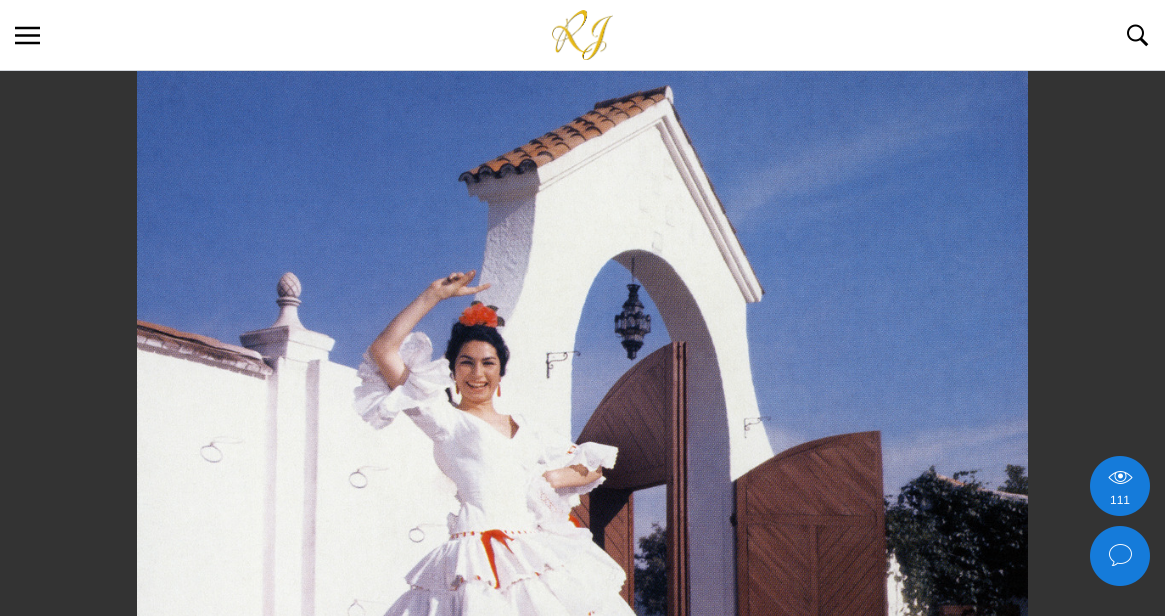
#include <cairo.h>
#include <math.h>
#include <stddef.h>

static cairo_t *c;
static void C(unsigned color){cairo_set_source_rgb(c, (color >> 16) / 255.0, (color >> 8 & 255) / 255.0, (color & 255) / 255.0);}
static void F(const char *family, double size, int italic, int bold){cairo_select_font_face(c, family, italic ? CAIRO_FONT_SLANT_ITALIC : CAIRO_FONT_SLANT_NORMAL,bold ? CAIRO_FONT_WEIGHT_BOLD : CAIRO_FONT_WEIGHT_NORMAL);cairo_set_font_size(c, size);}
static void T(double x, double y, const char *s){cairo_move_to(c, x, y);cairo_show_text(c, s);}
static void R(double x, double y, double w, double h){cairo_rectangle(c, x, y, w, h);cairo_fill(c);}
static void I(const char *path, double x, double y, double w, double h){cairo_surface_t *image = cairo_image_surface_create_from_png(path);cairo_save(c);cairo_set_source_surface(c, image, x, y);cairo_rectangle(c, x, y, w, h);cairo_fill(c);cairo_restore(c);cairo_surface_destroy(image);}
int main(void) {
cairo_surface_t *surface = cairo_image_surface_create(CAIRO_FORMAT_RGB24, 1165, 616);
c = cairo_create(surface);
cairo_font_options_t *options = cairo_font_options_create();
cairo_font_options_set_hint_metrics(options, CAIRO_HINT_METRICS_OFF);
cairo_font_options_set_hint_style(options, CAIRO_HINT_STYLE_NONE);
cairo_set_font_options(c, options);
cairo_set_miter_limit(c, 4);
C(0xffffff);
cairo_paint(c);
C(0xd3d6db);
R(0,70,1165,1);
I("1.png",15,26,25,19);
I("2.png",552,10,61,50);
I("3.png",1127,24,22,23);
C(0x333333);
R(0,71,1165,545);
I("4.png",137,71,891,545);
C(0x157bda);
cairo_arc(c,1120,486,30,0,2 * M_PI);
cairo_fill(c);
I("5.png",1108,471,25,13);
F("Liberation Sans",12,0,0);
C(0xffffff);
T(1110,504,"111");
C(0x157bda);
cairo_new_path(c);
cairo_arc(c,1120,556,30,0,2 * M_PI);
cairo_fill(c);
I("6.png",1109,544,23,22);
cairo_surface_write_to_png(surface, "o.png");
cairo_font_options_destroy(options);
cairo_destroy(c);
cairo_surface_destroy(surface);
return 0;
}
